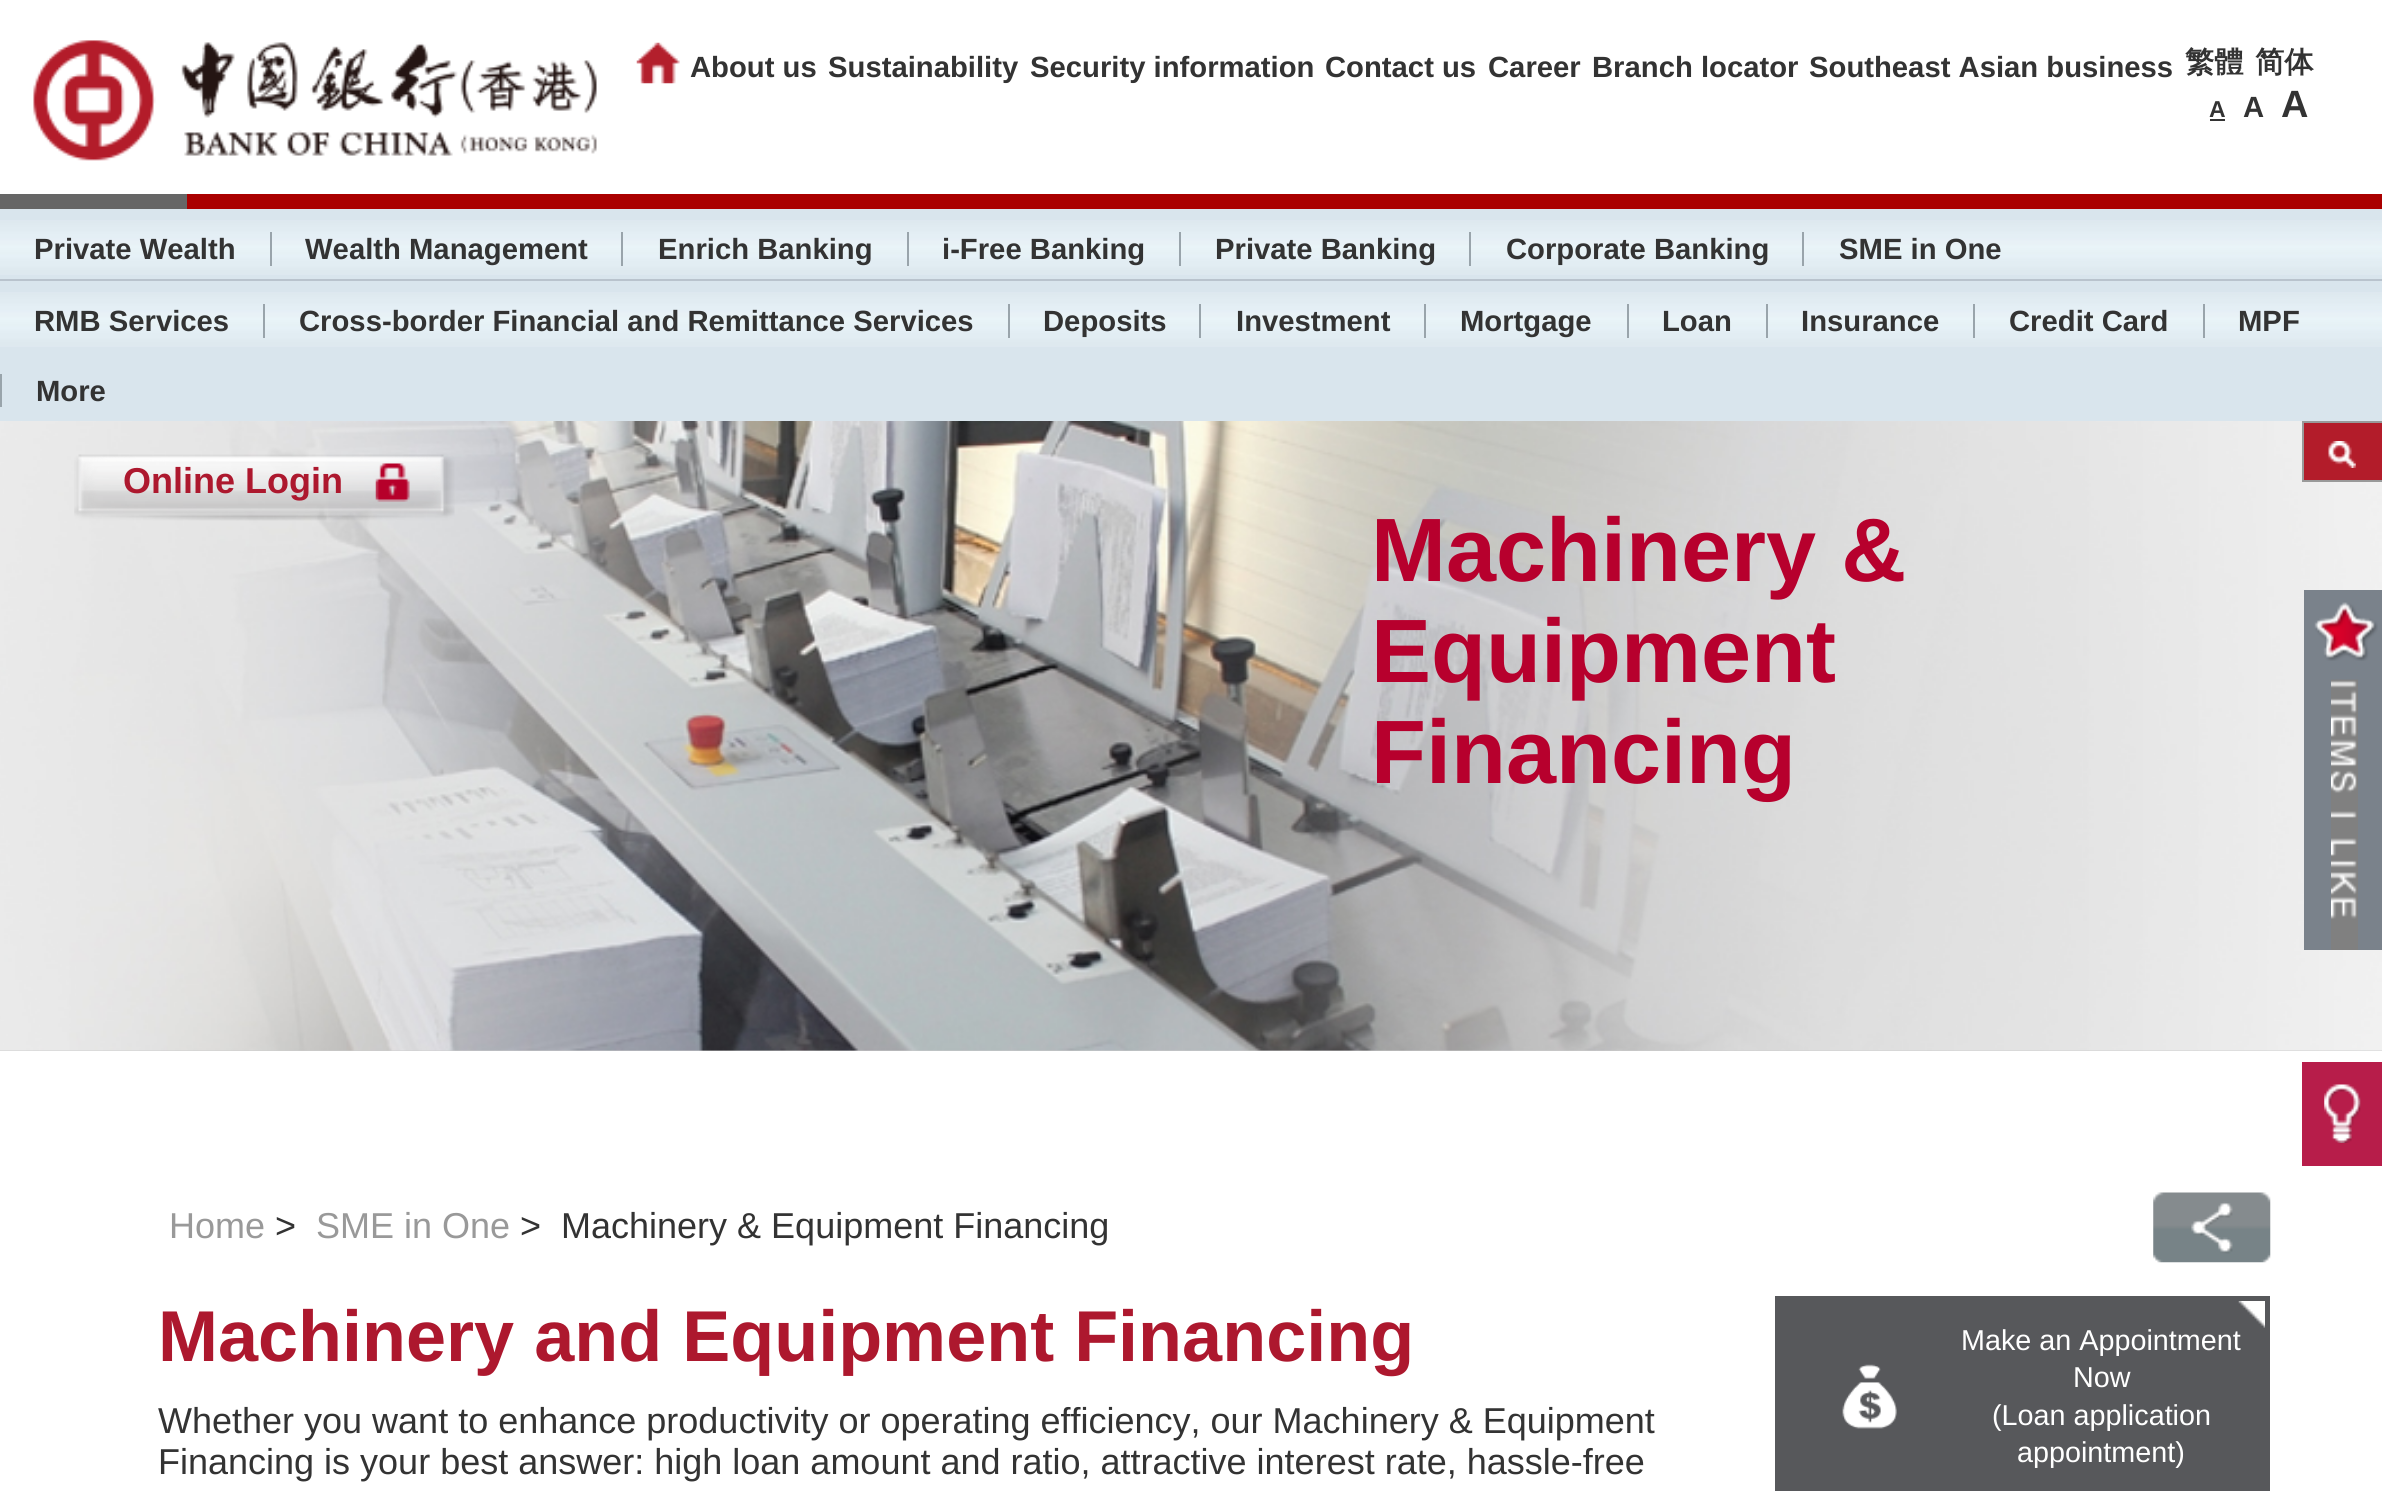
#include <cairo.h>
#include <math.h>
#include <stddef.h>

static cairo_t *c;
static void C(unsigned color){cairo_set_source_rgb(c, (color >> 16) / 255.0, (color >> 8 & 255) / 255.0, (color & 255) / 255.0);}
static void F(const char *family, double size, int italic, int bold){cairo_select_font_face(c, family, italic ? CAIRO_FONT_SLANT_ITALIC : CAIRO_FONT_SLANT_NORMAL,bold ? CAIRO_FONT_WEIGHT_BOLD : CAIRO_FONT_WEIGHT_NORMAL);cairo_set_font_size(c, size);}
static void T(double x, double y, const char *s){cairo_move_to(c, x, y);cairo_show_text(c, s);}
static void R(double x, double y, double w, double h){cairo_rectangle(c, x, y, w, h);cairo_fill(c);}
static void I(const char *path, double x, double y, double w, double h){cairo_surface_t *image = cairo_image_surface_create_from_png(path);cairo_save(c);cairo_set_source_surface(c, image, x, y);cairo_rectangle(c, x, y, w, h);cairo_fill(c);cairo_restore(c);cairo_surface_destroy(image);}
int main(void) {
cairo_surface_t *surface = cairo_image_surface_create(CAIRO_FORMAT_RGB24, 2382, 1491);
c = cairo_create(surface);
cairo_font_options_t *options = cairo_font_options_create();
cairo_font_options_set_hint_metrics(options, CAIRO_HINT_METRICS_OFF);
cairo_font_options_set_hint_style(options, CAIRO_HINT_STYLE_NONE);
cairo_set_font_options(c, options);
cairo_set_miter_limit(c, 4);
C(0xffffff);
cairo_paint(c);
I("1.png",33,40,564,121);
I("2.png",636,42,44,42);
F("Liberation Sans",29.25,0,1);
C(0x333333);
T(690,77,"About us");
T(828,77,"Sustainability");
T(1030,77,"Security information");
T(1325,77,"Contact us");
T(1488,77,"Career");
T(1592,77,"Branch locator");
T(1809,77,"Southeast Asian business");
F("WenQuanYi Zen Hei",29.25,0,1);
T(2185,72,"繁體");
T(2255,72,"简体");
F("Liberation Sans",23,0,1);
T(2209,117,"A");
R(2210,119,15,2);
F("Liberation Sans",29.25,0,1);
T(2243,117,"A");
F("Liberation Sans",38,0,1);
T(2281,117,"A");
C(0x666666);
R(0,194,187,15);
C(0xaa0000);
R(187,194,2195,15);
C(0xd9e5ed);
R(0,209,2382,70);
I("3.png",0,220,2382,55);
F("Liberation Sans",29.25,0,1);
C(0x333333);
T(34,259,"Private Wealth");
C(0x99a4ab);
R(270,232,2,34);
C(0x333333);
T(305,259,"Wealth Management");
C(0x99a4ab);
R(621,232,2,34);
C(0x333333);
T(658,259,"Enrich Banking");
C(0x99a4ab);
R(907,232,2,34);
C(0x333333);
T(942,259,"i-Free Banking");
C(0x99a4ab);
R(1179,232,2,34);
C(0x333333);
T(1215,259,"Private Banking");
C(0x99a4ab);
R(1469,232,2,34);
C(0x333333);
T(1506,259,"Corporate Banking");
C(0x99a4ab);
R(1802,232,2,34);
C(0x333333);
T(1839,259,"SME in One");
C(0xd9e5ed);
R(0,281,2382,140);
I("3.png",0,292,2382,55);
C(0xb9c3cd);
R(0,279,2382,2);
C(0x333333);
T(34,331,"RMB Services");
C(0x99a4ab);
R(263,304,2,34);
C(0x333333);
T(299,331,"Cross-border Financial and Remittance Services");
C(0x99a4ab);
R(1008,304,2,34);
C(0x333333);
T(1043,331,"Deposits");
C(0x99a4ab);
R(1199,304,2,34);
C(0x333333);
T(1236,331,"Investment");
C(0x99a4ab);
R(1424,304,2,34);
C(0x333333);
T(1460,331,"Mortgage");
C(0x99a4ab);
R(1627,304,2,34);
C(0x333333);
T(1662,331,"Loan");
C(0x99a4ab);
R(1766,304,2,34);
C(0x333333);
T(1801,331,"Insurance");
C(0x99a4ab);
R(1973,304,2,34);
C(0x333333);
T(2009,331,"Credit Card");
C(0x99a4ab);
R(2203,304,2,34);
C(0x333333);
T(2238,331,"MPF");
C(0x99a4ab);
R(0,374,2,33);
C(0x333333);
T(36,401,"More");
C(0xcccccc);
R(0,1050,2382,1);
I("7.png",0,421,2382,630);
I("4.png",74,454,381,67);
I("5.png",375,463,35,39);
F("Liberation Sans",36,0,1);
C(0xad182e);
T(123,493,"Online Login");
C(0xb31c2a);
cairo_rectangle(c,2303,422,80,59);
cairo_fill_preserve(c);
C(0x999999);
cairo_stroke(c);
I("6.png",2328,441,28,27);
F("Liberation Sans",90,0,1);
C(0xb7002d);
T(1371,581,"Machinery &");
T(1371,682,"Equipment");
T(1371,783,"Financing");
C(0x7a828b);
R(2304,590,78,360);
I("8.png",2314,602,64,59);
I("9.png",2331,679,27,271);
C(0xb71d4a);
R(2302,1062,80,104);
I("10.png",2324,1084,37,59);
F("Liberation Sans",36,0,0);
C(0x999999);
T(169,1238,"Home");
C(0x333333);
T(275,1238,">");
C(0x999999);
T(316,1238,"SME in One");
C(0x333333);
T(520,1238,">  Machinery & Equipment Financing");
I("11.png",2153,1192,118,71);
F("Liberation Sans",72,0,1);
C(0xad182e);
T(158,1361,"Machinery and Equipment Financing");
F("Liberation Sans",36,0,0);
C(0x333333);
T(158,1433,"Whether you want to enhance productivity or operating efficiency, our Machinery & Equipment");
T(158,1474,"Financing is your best answer: high loan amount and ratio, attractive interest rate, hassle-free");
C(0x57585b);
R(1780,1301,485,190);
I("12.png",2238,1301,27,27);
cairo_rectangle(c,1777.5,1298.5,490,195);
cairo_set_line_width(c,5);
cairo_stroke(c);
I("13.png",1842,1364,55,65);
F("Liberation Sans",28.75,0,0);
C(0xffffff);
T(1961,1350,"Make an Appointment");
T(2073,1387,"Now");
T(1992,1425,"(Loan application");
T(2017,1462,"appointment)");
cairo_surface_write_to_png(surface, "o.png");
cairo_font_options_destroy(options);
cairo_destroy(c);
cairo_surface_destroy(surface);
return 0;
}
